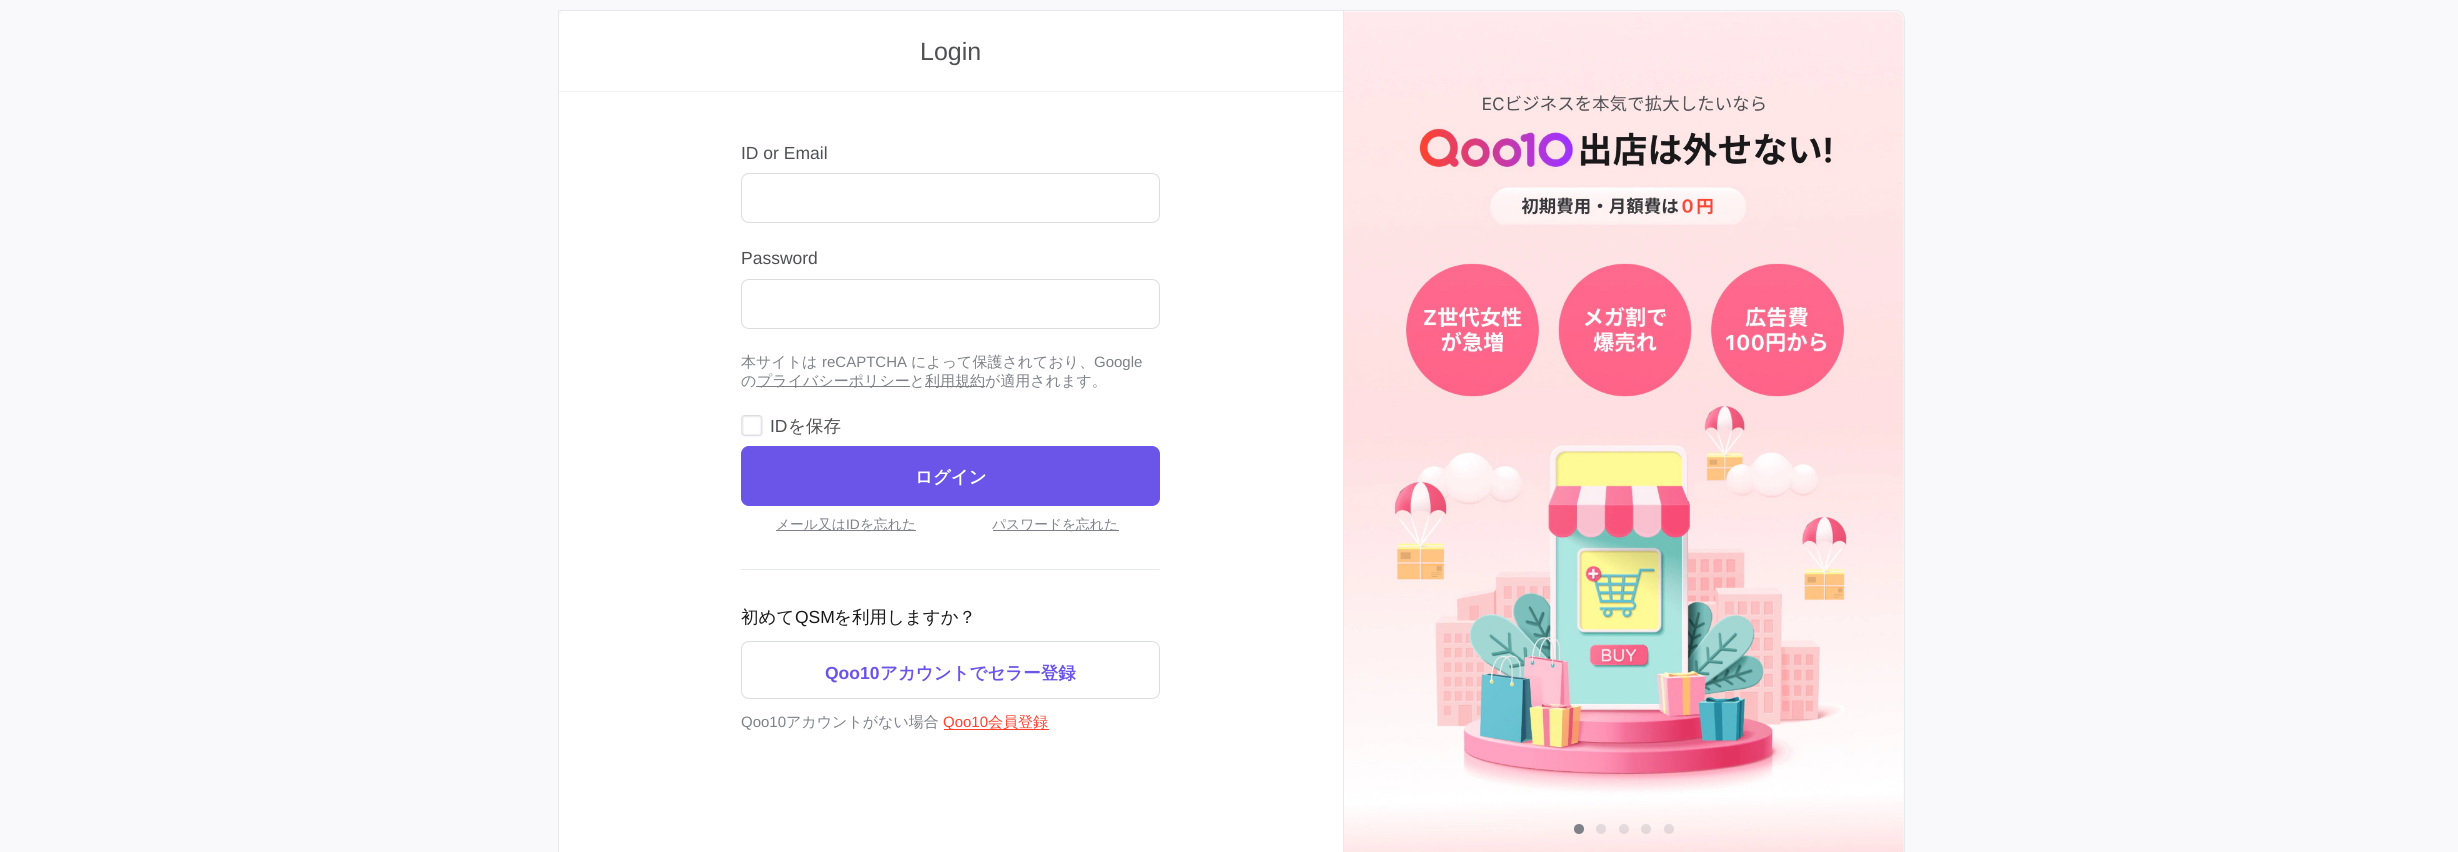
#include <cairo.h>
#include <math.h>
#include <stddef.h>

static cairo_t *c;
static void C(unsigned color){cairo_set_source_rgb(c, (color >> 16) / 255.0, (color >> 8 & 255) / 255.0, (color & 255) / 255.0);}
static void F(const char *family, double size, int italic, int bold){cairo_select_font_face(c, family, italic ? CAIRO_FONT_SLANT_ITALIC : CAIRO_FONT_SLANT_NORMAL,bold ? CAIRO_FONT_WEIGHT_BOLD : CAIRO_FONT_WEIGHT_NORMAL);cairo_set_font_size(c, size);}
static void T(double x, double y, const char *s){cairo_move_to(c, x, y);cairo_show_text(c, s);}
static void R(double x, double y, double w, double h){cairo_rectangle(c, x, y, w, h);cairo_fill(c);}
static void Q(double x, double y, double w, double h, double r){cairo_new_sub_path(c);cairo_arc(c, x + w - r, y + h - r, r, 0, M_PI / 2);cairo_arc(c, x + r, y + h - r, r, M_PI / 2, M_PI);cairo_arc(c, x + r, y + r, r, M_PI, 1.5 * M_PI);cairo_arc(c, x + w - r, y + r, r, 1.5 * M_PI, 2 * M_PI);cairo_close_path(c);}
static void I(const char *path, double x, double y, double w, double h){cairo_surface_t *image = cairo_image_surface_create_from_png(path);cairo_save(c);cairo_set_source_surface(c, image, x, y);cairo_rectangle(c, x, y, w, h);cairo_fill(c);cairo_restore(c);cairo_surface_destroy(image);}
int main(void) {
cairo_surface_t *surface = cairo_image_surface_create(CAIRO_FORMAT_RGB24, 2458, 852);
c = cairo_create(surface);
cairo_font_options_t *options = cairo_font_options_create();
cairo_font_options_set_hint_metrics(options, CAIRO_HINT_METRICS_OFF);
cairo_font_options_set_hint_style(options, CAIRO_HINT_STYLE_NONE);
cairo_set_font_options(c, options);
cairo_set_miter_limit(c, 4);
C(0xf9f9fb);
cairo_paint(c);
C(0xffffff);
Q(558,10,1343,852,10);
cairo_fill(c);
cairo_rectangle(c,558.5,10.5,785,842);
C(0xe8e9ed);
cairo_set_line_width(c,1);
cairo_stroke(c);
C(0xf1f1f3);
R(559,91,784,1);
F("Liberation Sans",25,0,0);
C(0x4e5054);
T(920,60,"Login");
F("Liberation Sans",17.5,0,0);
T(741,159,"ID or Email");
Q(741.5,173.5,418,49,7.5);
C(0xdddddd);
cairo_stroke(c);
C(0x4e5054);
T(741,264,"Password");
Q(741.5,279.5,418,49,7.5);
C(0xdddddd);
cairo_stroke(c);
F("WenQuanYi Zen Hei Medium",15,0,0);
C(0x7e8189);
T(741,367,"本サイトは");
F("Liberation Sans",15,0,0);
T(822,367,"reCAPTCHA");
F("WenQuanYi Zen Hei Medium",15,0,0);
T(911,367,"によって保護されており、");
F("Liberation Sans",15,0,0);
T(1094,367,"Google");
F("WenQuanYi Zen Hei Medium",15,0,0);
T(741,386,"の");
R(756,386,154,1);
T(757,386,"プライバシーポリシーと");
R(925,386,60,1);
T(925,386,"利用規約が適用されます。");
I("1.png",741,415,22,22);
F("Liberation Sans",17.5,0,0);
C(0x4e5054);
T(770,432,"ID");
F("WenQuanYi Zen Hei Medium",17.5,0,0);
T(788,432,"を保存");
C(0x6a55e8);
Q(741.5,446.5,418,59,7.5);
cairo_fill_preserve(c);
cairo_stroke(c);
F("WenQuanYi Zen Hei",17.5,0,1);
C(0xffffff);
T(915,483,"ログイン");
C(0x7e8189);
R(776,530,140,1);
F("WenQuanYi Zen Hei Medium",13.75,0,0);
T(776,529,"メール又は");
F("Liberation Sans",13.75,0,0);
T(846,529,"ID");
F("WenQuanYi Zen Hei Medium",13.75,0,0);
T(860,529,"を忘れた");
R(993,530,126,1);
T(992,529,"パスワードを忘れた");
C(0xe8e9ed);
R(741,569,419,1);
F("WenQuanYi Zen Hei Medium",17.5,0,0);
C(0x19191a);
T(741,623,"初めて");
F("Liberation Sans",17.5,0,0);
T(795,623,"QSM");
F("WenQuanYi Zen Hei Medium",17.5,0,0);
T(834,623,"を利用しますか？");
Q(741.5,641.5,418,57,7.5);
C(0xdcdde2);
cairo_stroke(c);
F("Liberation Sans",17.5,0,1);
C(0x6a55e8);
T(825,679,"Qoo10");
F("WenQuanYi Zen Hei",17.5,0,1);
T(880,679,"アカウントでセラー登録");
F("Liberation Sans",15,0,0);
C(0x7e8189);
T(741,727,"Qoo10");
F("WenQuanYi Zen Hei Medium",15,0,0);
T(786,727,"アカウントがない場合");
C(0xff422e);
R(944,729,105,1);
F("Liberation Sans",15,0,0);
T(943,727,"Qoo10");
F("WenQuanYi Zen Hei Medium",15,0,0);
T(988,727,"会員登録");
C(0xe8e9ed);
cairo_set_fill_rule(c,CAIRO_FILL_RULE_EVEN_ODD);
cairo_new_path(c);
cairo_move_to(c,1344,10);
cairo_line_to(c,1895,10);
cairo_curve_to(c,1901,10,1905,14,1905,20);
cairo_line_to(c,1905,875);
cairo_curve_to(c,1905,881,1901,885,1895,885);
cairo_line_to(c,1344,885);
cairo_close_path(c);
cairo_move_to(c,1344,11);
cairo_line_to(c,1895,11);
cairo_curve_to(c,1900,11,1904,15,1904,20);
cairo_line_to(c,1904,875);
cairo_curve_to(c,1904,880,1900,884,1895,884);
cairo_line_to(c,1344,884);
cairo_close_path(c);
cairo_fill(c);
I("2.png",1344,11,560,841);
C(0x7e8189);
cairo_arc(c,1579,829,5,0,2 * M_PI);
cairo_fill(c);
cairo_set_source_rgba(c,0.494,0.506,0.537,0.2);
cairo_arc(c,1601,829,5,0,2 * M_PI);
cairo_fill(c);
cairo_arc(c,1624,829,5,0,2 * M_PI);
cairo_fill(c);
cairo_arc(c,1646,829,5,0,2 * M_PI);
cairo_fill(c);
cairo_arc(c,1669,829,5,0,2 * M_PI);
cairo_fill(c);
cairo_surface_write_to_png(surface, "o.png");
cairo_font_options_destroy(options);
cairo_destroy(c);
cairo_surface_destroy(surface);
return 0;
}
